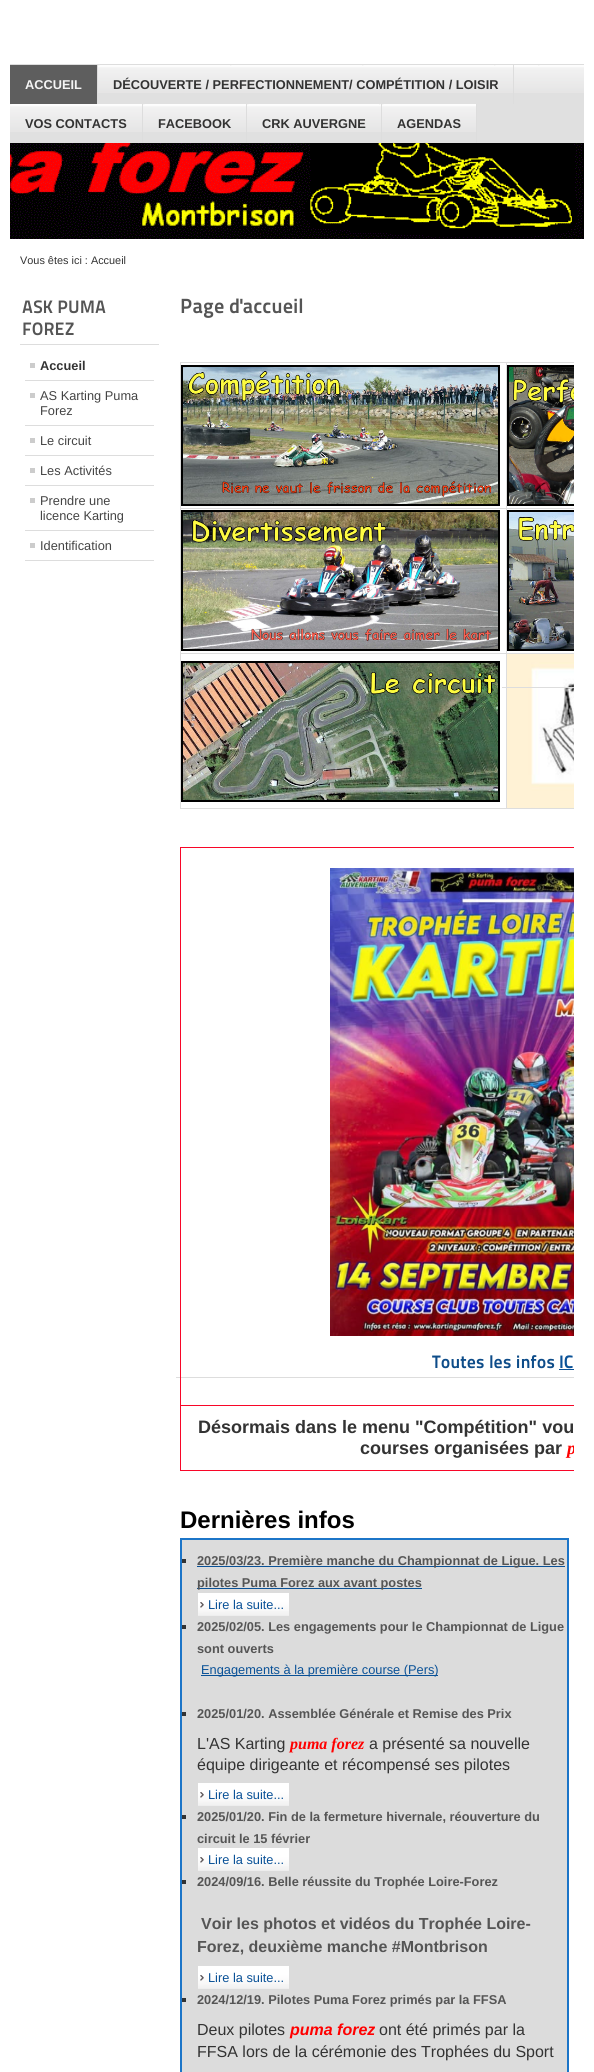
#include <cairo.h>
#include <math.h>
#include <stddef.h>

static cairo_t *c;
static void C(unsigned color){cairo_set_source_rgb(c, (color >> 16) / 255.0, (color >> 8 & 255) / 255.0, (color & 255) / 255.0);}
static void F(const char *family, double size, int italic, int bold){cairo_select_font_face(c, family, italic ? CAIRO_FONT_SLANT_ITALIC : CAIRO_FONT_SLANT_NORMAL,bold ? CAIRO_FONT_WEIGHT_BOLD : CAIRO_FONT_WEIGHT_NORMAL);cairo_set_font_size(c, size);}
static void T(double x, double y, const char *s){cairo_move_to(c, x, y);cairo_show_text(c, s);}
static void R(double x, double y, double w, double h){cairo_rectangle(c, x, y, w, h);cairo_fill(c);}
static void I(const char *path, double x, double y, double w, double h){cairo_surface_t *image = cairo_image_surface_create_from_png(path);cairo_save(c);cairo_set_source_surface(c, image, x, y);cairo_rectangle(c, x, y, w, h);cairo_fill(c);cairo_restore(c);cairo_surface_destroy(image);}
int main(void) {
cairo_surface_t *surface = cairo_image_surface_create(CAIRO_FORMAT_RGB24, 594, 2072);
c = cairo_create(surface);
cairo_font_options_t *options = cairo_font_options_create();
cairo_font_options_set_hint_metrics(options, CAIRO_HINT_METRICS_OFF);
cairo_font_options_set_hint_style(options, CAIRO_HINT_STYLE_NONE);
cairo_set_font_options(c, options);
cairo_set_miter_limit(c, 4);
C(0xffffff);
cairo_paint(c);
C(0xe0e0e0);
R(10,93,574,50);
I("1.png",514,65,70,28);
C(0xdddddd);
R(10,64,574,1);
C(0x5e5e5e);
R(10,65,87,39);
C(0xdddddd);
R(97,65,1,39);
F("Liberation Sans",12.8,0,1);
C(0xf5f5f5);
T(25,89,"ACCUEIL");
I("2.png",98,65,415,28);
C(0xdddddd);
R(513,65,1,39);
C(0x333333);
T(113,89,"DÉCOUVERTE / PERFECTIONNEMENT/ COMPÉTITION / LOISIR");
I("3.png",10,104,132,28);
C(0xdddddd);
R(142,104,1,39);
C(0x333333);
T(25,128,"VOS CONTACTS");
I("4.png",143,104,103,28);
C(0xdddddd);
R(246,104,1,39);
C(0x333333);
T(158,128,"FACEBOOK");
I("5.png",247,104,134,28);
C(0xdddddd);
R(381,104,1,39);
C(0x333333);
T(262,128,"CRK AUVERGNE");
I("6.png",382,104,94,28);
C(0xdddddd);
R(476,104,1,39);
C(0x333333);
T(397,128,"AGENDAS");
I("7.png",10,143,574,96);
F("Liberation Sans",10.9,0,0);
T(20,264,"Vous êtes ici : Accueil");
C(0xdddddd);
R(20,344,139,1);
F("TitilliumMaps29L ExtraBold",18,0,0);
C(0x555555);
T(22,313,"ASK PUMA");
T(22,335,"FOREZ");
C(0xdddddd);
R(25,380,129,1);
C(0xcccccc);
R(30,363,5,5);
F("Liberation Sans",12.8,0,1);
C(0x333333);
T(40,370,"Accueil");
C(0xdddddd);
R(25,425,129,1);
C(0xcccccc);
R(30,393,5,5);
F("Liberation Sans",12.8,0,0);
C(0x444444);
T(40,400,"AS Karting Puma");
T(40,415,"Forez");
C(0xdddddd);
R(25,455,129,1);
C(0xcccccc);
R(30,438,5,5);
C(0x444444);
T(40,445,"Le circuit");
C(0xdddddd);
R(25,485,129,1);
C(0xcccccc);
R(30,468,5,5);
C(0x444444);
T(40,475,"Les Activités");
C(0xdddddd);
R(25,530,129,1);
C(0xcccccc);
R(30,498,5,5);
C(0x444444);
T(40,505,"Prendre une");
T(40,520,"licence Karting");
C(0xdddddd);
R(25,560,129,1);
C(0xcccccc);
R(30,543,5,5);
C(0x444444);
T(40,550,"Identification");
F("TitilliumMaps29L ExtraBold",20.5,0,0);
C(0x555555);
T(180,313,"Page d'accueil");
C(0xdddddd);
R(180,653,394,1);
R(180,808,394,1);
R(180,653,1,156);
cairo_rectangle(c,182,662,317,139);
C(0x000000);
cairo_stroke(c);
I("8.png",183,663,315,137);
I("9.png",507,654,67,154);
C(0xdddddd);
R(502,687,72,1);
R(180,362,394,1);
R(180,508,394,1);
R(506,362,1,447);
R(180,508,1,146);
R(180,362,1,147);
cairo_rectangle(c,182,366,317,139);
C(0x000000);
cairo_stroke(c);
I("10.png",183,367,315,137);
cairo_save(c);
cairo_rectangle(c,175,291,399,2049);
cairo_clip(c);
cairo_rectangle(c,508,366,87,139);
cairo_stroke(c);
cairo_restore(c);
I("11.png",509,367,65,137);
cairo_rectangle(c,182,511,317,139);
cairo_stroke(c);
I("12.png",183,512,315,137);
cairo_save(c);
cairo_rectangle(c,175,291,399,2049);
cairo_clip(c);
cairo_rectangle(c,508,511,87,139);
cairo_stroke(c);
cairo_restore(c);
I("13.png",509,512,65,137);
C(0xf80628);
R(180,847,394,1);
C(0xdddddd);
R(176,1377,398,1);
C(0xf80628);
R(180,1405,394,1);
R(180,1470,394,1);
R(180,1405,1,66);
R(180,847,1,559);
I("14.png",330,868,244,468);
F("TitilliumMaps29L ExtraBold",18,0,0);
C(0x0d4c89);
T(432,1368,"Toutes les infos");
C(0x095197);
T(559,1368,"IC");
R(559,1369,15,1);
F("Liberation Sans",18,0,1);
C(0x333333);
T(198,1433,"Désormais dans le menu \"Compétition\" vou");
T(360,1454,"courses organisées par");
cairo_save(c);
cairo_rectangle(c,175,291,399,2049);
cairo_clip(c);
F("Liberation Serif",18,1,1);
C(0xff0000);
T(567,1454,"p");
cairo_restore(c);
F("Liberation Sans",24,0,1);
C(0x000000);
T(180,1528,"Dernières infos");
C(0xdcdcdc);
cairo_rectangle(c,181,1539,387,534);
cairo_fill_preserve(c);
C(0x1c75c8);
cairo_stroke(c);
C(0x333333);
R(182,1559,4,4);
C(0x095197);
R(197,1566,368,1);
F("Liberation Sans",12.8,0,1);
C(0x555555);
T(197,1565,"2025/03/23. Première manche du Championnat de Ligue. Les");
C(0x095197);
R(197,1588,225,1);
C(0x555555);
T(197,1587,"pilotes Puma Forez aux avant postes");
I("15.png",198,1593,91,22);
F("Liberation Sans",12.8,0,0);
C(0x095197);
T(208,1609,"Lire la suite...");
C(0xeeeeee);
R(198,1615,91,1);
C(0x333333);
R(182,1625,4,4);
F("Liberation Sans",12.8,0,1);
C(0x555555);
T(197,1631,"2025/02/05. Les engagements pour le Championnat de Ligue");
T(197,1653,"sont ouverts");
C(0x095197);
R(201,1675,237,1);
F("Liberation Sans",12.8,0,0);
T(201,1674,"Engagements à la première course (Pers)");
C(0x333333);
R(182,1712,4,4);
F("Liberation Sans",12.8,0,1);
C(0x555555);
T(197,1718,"2025/01/20. Assemblée Générale et Remise des Prix");
F("Liberation Sans",16,0,0);
C(0x333333);
T(197,1749,"L'AS Karting");
F("Liberation Serif",16,1,1);
C(0xff0000);
T(290,1749,"puma forez");
F("Liberation Sans",16,0,0);
C(0x333333);
T(369,1749,"a présenté sa nouvelle");
T(197,1770,"équipe dirigeante et récompensé ses pilotes");
I("15.png",198,1783,91,22);
F("Liberation Sans",12.8,0,0);
C(0x095197);
T(208,1799,"Lire la suite...");
C(0xeeeeee);
R(198,1805,91,1);
C(0x333333);
R(182,1815,4,4);
F("Liberation Sans",12.8,0,1);
C(0x555555);
T(197,1821,"2025/01/20. Fin de la fermeture hivernale, réouverture du");
T(197,1843,"circuit le 15 février");
I("15.png",198,1848,91,22);
F("Liberation Sans",12.8,0,0);
C(0x095197);
T(208,1864,"Lire la suite...");
C(0xeeeeee);
R(198,1870,91,1);
C(0x333333);
R(182,1880,4,4);
F("Liberation Sans",12.8,0,1);
C(0x555555);
T(197,1886,"2024/09/16. Belle réussite du Trophée Loire-Forez");
F("Liberation Sans",16,0,1);
T(201,1929,"Voir les photos et vidéos du Trophée Loire-");
T(197,1952,"Forez, deuxième manche #Montbrison");
I("15.png",198,1966,91,22);
F("Liberation Sans",12.8,0,0);
C(0x095197);
T(208,1982,"Lire la suite...");
C(0xeeeeee);
R(198,1988,91,1);
C(0x333333);
R(182,1998,4,4);
F("Liberation Sans",12.8,0,1);
C(0x555555);
T(197,2004,"2024/12/19. Pilotes Puma Forez primés par la FFSA");
F("Liberation Sans",16,0,0);
C(0x333333);
T(197,2035,"Deux pilotes");
F("Liberation Sans",16,1,1);
C(0xff0000);
T(290,2035,"puma forez");
F("Liberation Sans",16,0,0);
C(0x333333);
T(379,2035,"ont été primés par la");
T(197,2057,"FFSA lors de la cérémonie des Trophées du Sport");
cairo_surface_write_to_png(surface, "o.png");
cairo_font_options_destroy(options);
cairo_destroy(c);
cairo_surface_destroy(surface);
return 0;
}
